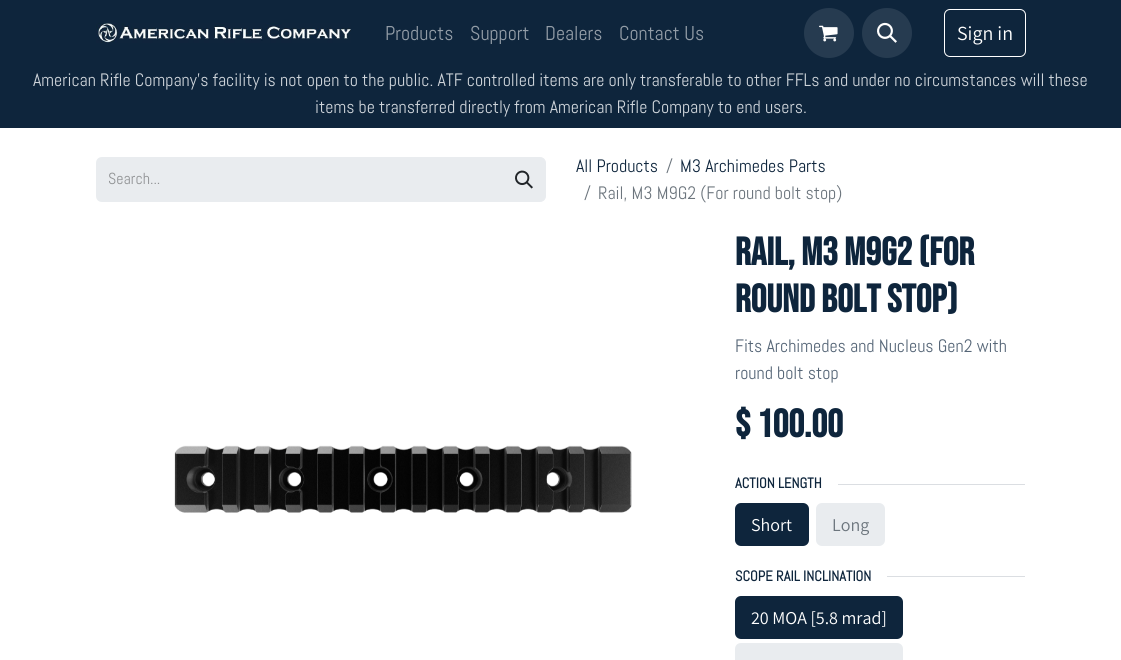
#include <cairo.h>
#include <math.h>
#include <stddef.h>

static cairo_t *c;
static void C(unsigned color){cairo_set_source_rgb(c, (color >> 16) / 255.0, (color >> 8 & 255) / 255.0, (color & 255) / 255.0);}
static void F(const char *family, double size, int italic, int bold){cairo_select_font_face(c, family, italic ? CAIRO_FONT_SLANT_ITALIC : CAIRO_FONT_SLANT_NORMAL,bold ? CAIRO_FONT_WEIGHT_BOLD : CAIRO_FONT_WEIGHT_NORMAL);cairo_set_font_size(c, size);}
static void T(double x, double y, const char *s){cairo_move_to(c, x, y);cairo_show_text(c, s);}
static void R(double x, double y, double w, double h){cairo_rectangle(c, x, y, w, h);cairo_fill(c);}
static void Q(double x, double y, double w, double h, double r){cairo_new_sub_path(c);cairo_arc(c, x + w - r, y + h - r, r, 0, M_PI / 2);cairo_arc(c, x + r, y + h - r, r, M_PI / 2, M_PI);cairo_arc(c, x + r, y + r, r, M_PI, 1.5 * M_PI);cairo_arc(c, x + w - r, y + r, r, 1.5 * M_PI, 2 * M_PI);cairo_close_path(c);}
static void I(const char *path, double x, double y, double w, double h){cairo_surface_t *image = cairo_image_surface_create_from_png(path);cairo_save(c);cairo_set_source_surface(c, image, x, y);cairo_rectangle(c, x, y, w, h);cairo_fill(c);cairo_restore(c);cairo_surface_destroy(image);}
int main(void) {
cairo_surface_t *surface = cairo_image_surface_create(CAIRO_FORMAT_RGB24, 1121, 660);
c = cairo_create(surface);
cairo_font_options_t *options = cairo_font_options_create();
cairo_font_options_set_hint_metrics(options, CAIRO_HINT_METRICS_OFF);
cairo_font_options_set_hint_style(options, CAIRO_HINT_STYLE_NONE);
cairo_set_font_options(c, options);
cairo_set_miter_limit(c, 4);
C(0xffffff);
cairo_paint(c);
C(0x0e253c);
R(0,0,1121,128);
I("1.png",96,23,255,20);
F("Abel",20,0,0);
C(0x939da7);
T(385,40,"Products");
T(470,40,"Support");
T(545,40,"Dealers");
T(619,40,"Contact Us");
C(0x263b50);
cairo_new_path(c);
cairo_arc(c,829,33,25,0,2 * M_PI);
cairo_fill(c);
I("2.png",819,25,19,17);
cairo_arc(c,887,33,25,0,2 * M_PI);
cairo_fill(c);
I("3.png",877,22,20,21);
Q(944.5,9.5,81,47,5.5);
C(0xffffff);
cairo_set_line_width(c,1);
cairo_stroke(c);
F("Assistant",20,0,0);
T(957,40,"Sign in");
F("Abel",18,0,0);
C(0xced4da);
T(33,86,"American Rifle Company's facility is not open to the public. ATF controlled items are only transferable to other FFLs and under no circumstances will these");
T(315,113,"items be transferred directly from American Rifle Company to end users.");
C(0xe9ecef);
cairo_new_path(c);
cairo_move_to(c,102,157);
cairo_line_to(c,503,157);
cairo_line_to(c,503,202);
cairo_line_to(c,102,202);
cairo_curve_to(c,98.5,202,96,199.5,96,196);
cairo_line_to(c,96,163);
cairo_curve_to(c,96,159.5,98.5,157,102,157);
cairo_close_path(c);
cairo_fill(c);
F("Abel",16,0,0);
C(0x909294);
T(108,184,"Search...");
C(0xe9ecef);
cairo_new_path(c);
cairo_move_to(c,502.5,157.5);
cairo_line_to(c,540,157.5);
cairo_curve_to(c,543,157.5,545.5,160,545.5,163);
cairo_line_to(c,545.5,196);
cairo_curve_to(c,545.5,199,543,201.5,540,201.5);
cairo_line_to(c,502.5,201.5);
cairo_close_path(c);
cairo_fill_preserve(c);
cairo_stroke(c);
I("4.png",515,170,18,19);
F("Abel",18,0,0);
C(0x0e253c);
T(576,172,"All Products");
C(0x6c757d);
T(666,172,"/");
C(0x0e253c);
T(680,172,"M3 Archimedes Parts");
C(0x6c757d);
T(584,199,"/");
T(598,199,"Rail, M3 M9G2 (For round bolt stop)");
I("5.png",174,445,458,68);
F("Bebas Neue",39.25,0,1);
C(0x0e253c);
T(735,265,"Rail, M3 M9G2 (For");
T(735,312,"round bolt stop)");
F("Abel",18,0,0);
C(0x566677);
T(735,352,"Fits Archimedes and Nucleus Gen2 with");
T(735,379,"round bolt stop");
F("Bebas Neue",39.25,0,1);
C(0x0e253c);
T(735,437,"$ 100.00");
F("Abel",14.5,0,1);
T(735,488,"ACTION LENGTH");
C(0xdbdee2);
R(838,484,187,1);
C(0x0e253c);
Q(735,503,74,43,6);
cairo_fill(c);
F("Assistant",18,0,0);
C(0xffffff);
T(751,531,"Short");
C(0xe9ecef);
Q(816,503,69,43,6);
cairo_fill(c);
C(0x6c757d);
T(832,531,"Long");
F("Abel",14.5,0,1);
C(0x0e253c);
T(735,581,"SCOPE RAIL INCLINATION");
C(0xdbdee2);
R(887,576,138,1);
C(0x0e253c);
Q(735,596,168,43,6);
cairo_fill(c);
F("Assistant",18,0,0);
C(0xffffff);
T(751,624,"20 MOA [5.8 mrad]");
C(0xe9ecef);
cairo_new_path(c);
cairo_move_to(c,741,643);
cairo_line_to(c,897,643);
cairo_curve_to(c,900.5,643,903,645.5,903,649);
cairo_line_to(c,903,660);
cairo_line_to(c,735,660);
cairo_line_to(c,735,649);
cairo_curve_to(c,735,645.5,737.5,643,741,643);
cairo_close_path(c);
cairo_fill(c);
cairo_surface_write_to_png(surface, "o.png");
cairo_font_options_destroy(options);
cairo_destroy(c);
cairo_surface_destroy(surface);
return 0;
}
